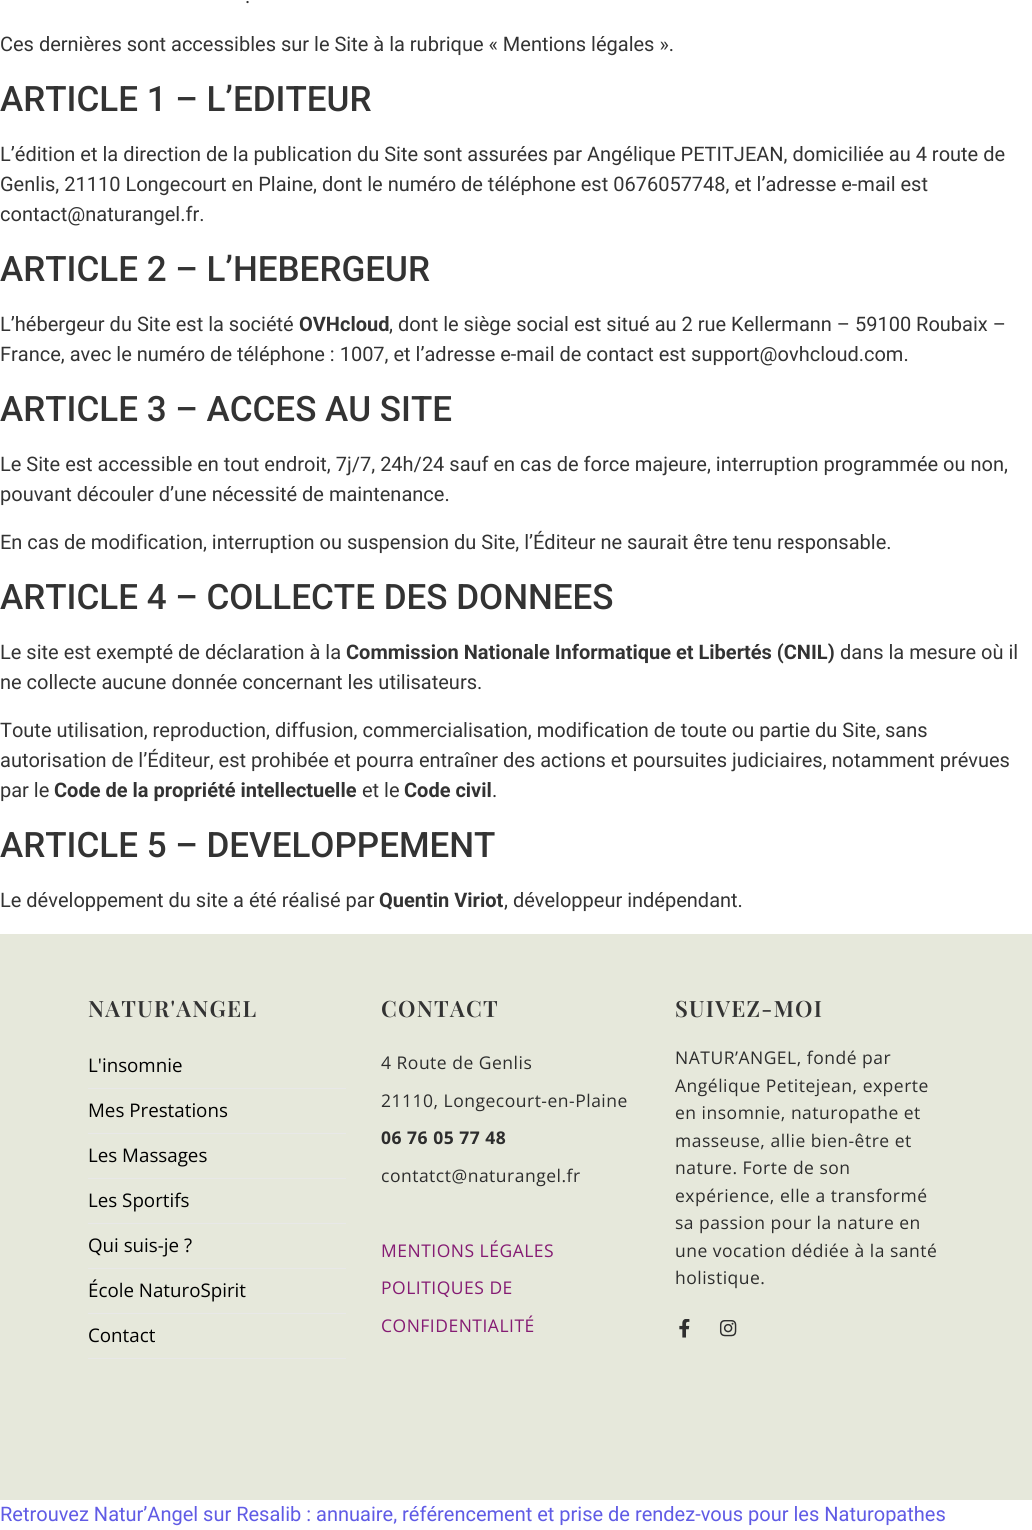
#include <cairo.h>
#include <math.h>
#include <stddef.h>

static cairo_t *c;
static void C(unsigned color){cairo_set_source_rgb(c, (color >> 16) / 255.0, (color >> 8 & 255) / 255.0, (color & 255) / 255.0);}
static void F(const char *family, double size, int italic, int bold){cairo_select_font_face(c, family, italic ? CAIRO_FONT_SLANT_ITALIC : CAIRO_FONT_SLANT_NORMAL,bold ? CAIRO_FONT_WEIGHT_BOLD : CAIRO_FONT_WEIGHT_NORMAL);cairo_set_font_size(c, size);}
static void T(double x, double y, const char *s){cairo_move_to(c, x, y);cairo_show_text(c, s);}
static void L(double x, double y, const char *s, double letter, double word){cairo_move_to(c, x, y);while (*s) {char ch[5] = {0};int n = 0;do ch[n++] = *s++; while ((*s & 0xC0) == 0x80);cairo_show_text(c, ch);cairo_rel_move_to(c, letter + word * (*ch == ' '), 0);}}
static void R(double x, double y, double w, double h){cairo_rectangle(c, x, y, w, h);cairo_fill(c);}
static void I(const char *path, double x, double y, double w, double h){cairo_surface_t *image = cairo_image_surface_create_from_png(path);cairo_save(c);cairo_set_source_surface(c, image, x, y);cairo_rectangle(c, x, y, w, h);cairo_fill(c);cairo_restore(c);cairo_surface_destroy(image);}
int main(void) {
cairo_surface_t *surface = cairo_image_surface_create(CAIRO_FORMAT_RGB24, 1032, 1530);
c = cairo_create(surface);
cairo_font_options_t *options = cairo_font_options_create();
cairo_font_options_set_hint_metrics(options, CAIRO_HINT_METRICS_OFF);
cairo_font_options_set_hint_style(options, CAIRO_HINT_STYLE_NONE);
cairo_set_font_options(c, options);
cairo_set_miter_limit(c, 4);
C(0xffffff);
cairo_paint(c);
F("Roboto",20,0,0);
C(0x333333);
T(245,3,".");
T(0,51,"Ces dernières sont accessibles sur le Site à la rubrique « Mentions légales ».");
F("Roboto Medium",35,0,0);
T(0,111,"ARTICLE 1 – L’EDITEUR");
F("Roboto",20,0,0);
T(0,161,"L’édition et la direction de la publication du Site sont assurées par Angélique PETITJEAN, domiciliée au 4 route de");
T(0,191,"Genlis, 21110 Longecourt en Plaine, dont le numéro de téléphone est 0676057748, et l’adresse e-mail est");
T(0,221,"contact@naturangel.fr.");
F("Roboto Medium",35,0,0);
T(0,281,"ARTICLE 2 – L’HEBERGEUR");
F("Roboto",20,0,0);
T(0,331,"L’hébergeur du Site est la société");
F("Roboto",20,0,1);
T(299,331,"OVHcloud");
F("Roboto",20,0,0);
T(389,331,", dont le siège social est situé au 2 rue Kellermann – 59100 Roubaix –");
T(0,361,"France, avec le numéro de téléphone : 1007, et l’adresse e-mail de contact est support@ovhcloud.com.");
F("Roboto Medium",35,0,0);
T(0,421,"ARTICLE 3 – ACCES AU SITE");
F("Roboto",20,0,0);
T(0,471,"Le Site est accessible en tout endroit, 7j/7, 24h/24 sauf en cas de force majeure, interruption programmée ou non,");
T(0,501,"pouvant découler d’une nécessité de maintenance.");
T(0,549,"En cas de modification, interruption ou suspension du Site, l’Éditeur ne saurait être tenu responsable.");
F("Roboto Medium",35,0,0);
T(0,609,"ARTICLE 4 – COLLECTE DES DONNEES");
F("Roboto",20,0,0);
T(0,659,"Le site est exempté de déclaration à la");
F("Roboto",20,0,1);
T(346,659,"Commission Nationale Informatique et Libertés (CNIL)");
F("Roboto",20,0,0);
T(840,659,"dans la mesure où il");
T(0,689,"ne collecte aucune donnée concernant les utilisateurs.");
T(0,737,"Toute utilisation, reproduction, diffusion, commercialisation, modification de toute ou partie du Site, sans");
T(0,767,"autorisation de l’Éditeur, est prohibée et pourra entraîner des actions et poursuites judiciaires, notamment prévues");
T(0,797,"par le");
F("Roboto",20,0,1);
T(54,797,"Code de la propriété intellectuelle");
F("Roboto",20,0,0);
T(362,797,"et le");
F("Roboto",20,0,1);
T(404,797,"Code civil");
F("Roboto",20,0,0);
T(492,797,".");
F("Roboto Medium",35,0,0);
T(0,857,"ARTICLE 5 – DEVELOPPEMENT");
F("Roboto",20,0,0);
T(0,907,"Le développement du site a été réalisé par");
F("Roboto",20,0,1);
T(379,907,"Quentin Viriot");
F("Roboto",20,0,0);
T(504,907,", développeur indépendant.");
C(0xe6e8db);
R(0,934,1032,566);
F("Playfair Display SemiBold",22.5,0,0);
C(0x333333);
L(88,1017,"NATUR'ANGEL",1.25,0);
C(0xe8e8e8);
R(88,1088,258,1);
F("Open Sans",18.75,0,0);
C(0x000000);
T(88,1072,"L'insomnie");
C(0xe8e8e8);
R(88,1133,258,1);
C(0x000000);
T(88,1117,"Mes Prestations");
C(0xe8e8e8);
R(88,1178,258,1);
C(0x000000);
T(88,1162,"Les Massages");
C(0xe8e8e8);
R(88,1223,258,1);
C(0x000000);
T(88,1207,"Les Sportifs");
C(0xe8e8e8);
R(88,1268,258,1);
C(0x000000);
T(88,1252,"Qui suis-je ?");
C(0xe8e8e8);
R(88,1313,258,1);
C(0x000000);
T(88,1297,"École NaturoSpirit");
C(0xe8e8e8);
R(88,1358,258,1);
C(0x000000);
T(88,1342,"Contact");
F("Playfair Display SemiBold",22.5,0,0);
C(0x333333);
L(381,1017,"CONTACT",1.25,0);
F("Open Sans",17.5,0,0);
C(0x2d2d2d);
L(381,1069,"4 Route de Genlis",.5,0);
L(381,1107,"21110, Longecourt-en-Plaine",.5,0);
F("Open Sans",17.5,0,1);
L(381,1144,"06 76 05 77 48",.5,0);
F("Open Sans",17.5,0,0);
L(381,1182,"contatct@naturangel.fr",.5,0);
C(0x851b73);
L(381,1257,"MENTIONS LÉGALES",.5,0);
L(381,1294,"POLITIQUES DE",.5,0);
L(381,1332,"CONFIDENTIALITÉ",.5,0);
F("Playfair Display SemiBold",22.5,0,0);
C(0x333333);
L(675,1017,"SUIVEZ-MOI",1.25,0);
F("Open Sans",17.5,0,0);
C(0x2d2d2d);
L(675,1064,"NATUR’ANGEL, fondé par",.5,0);
L(675,1092,"Angélique Petitejean, experte",.5,0);
L(675,1119,"en insomnie, naturopathe et",.5,0);
L(675,1147,"masseuse, allie bien-être et",.5,0);
L(675,1174,"nature. Forte de son",.5,0);
L(675,1202,"expérience, elle a transformé",.5,0);
L(675,1229,"sa passion pour la nature en",.5,0);
L(675,1257,"une vocation dédiée à la santé",.5,0);
L(675,1284,"holistique.",.5,0);
I("1.png",679,1319,11,19);
I("2.png",719,1320,18,17);
F("Roboto",20,0,0);
C(0x605be5);
T(0,1521,"Retrouvez Natur’Angel sur Resalib : annuaire, référencement et prise de rendez-vous pour les Naturopathes");
cairo_surface_write_to_png(surface, "o.png");
cairo_font_options_destroy(options);
cairo_destroy(c);
cairo_surface_destroy(surface);
return 0;
}
